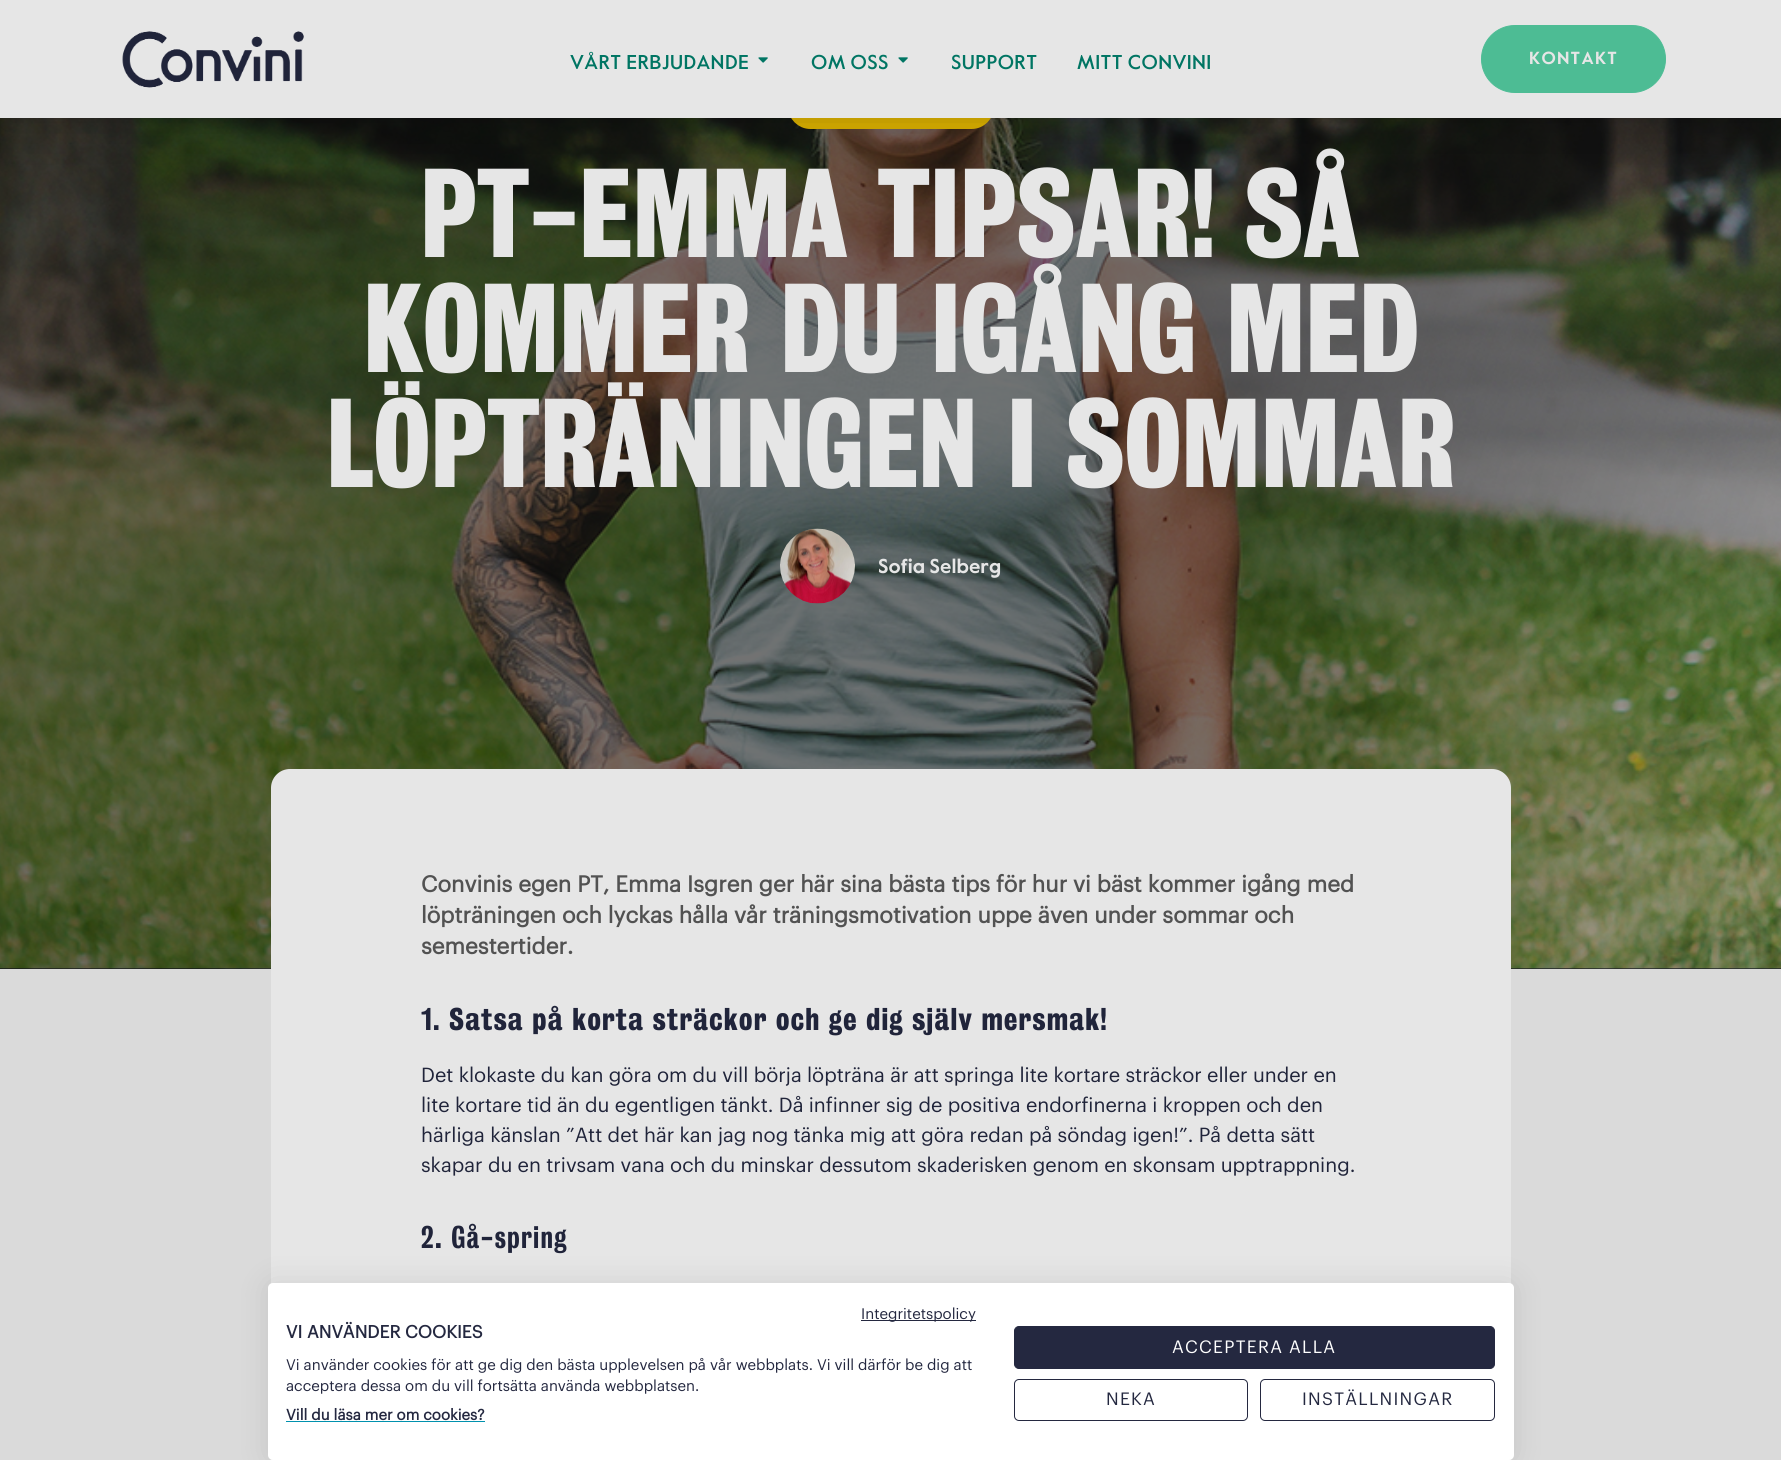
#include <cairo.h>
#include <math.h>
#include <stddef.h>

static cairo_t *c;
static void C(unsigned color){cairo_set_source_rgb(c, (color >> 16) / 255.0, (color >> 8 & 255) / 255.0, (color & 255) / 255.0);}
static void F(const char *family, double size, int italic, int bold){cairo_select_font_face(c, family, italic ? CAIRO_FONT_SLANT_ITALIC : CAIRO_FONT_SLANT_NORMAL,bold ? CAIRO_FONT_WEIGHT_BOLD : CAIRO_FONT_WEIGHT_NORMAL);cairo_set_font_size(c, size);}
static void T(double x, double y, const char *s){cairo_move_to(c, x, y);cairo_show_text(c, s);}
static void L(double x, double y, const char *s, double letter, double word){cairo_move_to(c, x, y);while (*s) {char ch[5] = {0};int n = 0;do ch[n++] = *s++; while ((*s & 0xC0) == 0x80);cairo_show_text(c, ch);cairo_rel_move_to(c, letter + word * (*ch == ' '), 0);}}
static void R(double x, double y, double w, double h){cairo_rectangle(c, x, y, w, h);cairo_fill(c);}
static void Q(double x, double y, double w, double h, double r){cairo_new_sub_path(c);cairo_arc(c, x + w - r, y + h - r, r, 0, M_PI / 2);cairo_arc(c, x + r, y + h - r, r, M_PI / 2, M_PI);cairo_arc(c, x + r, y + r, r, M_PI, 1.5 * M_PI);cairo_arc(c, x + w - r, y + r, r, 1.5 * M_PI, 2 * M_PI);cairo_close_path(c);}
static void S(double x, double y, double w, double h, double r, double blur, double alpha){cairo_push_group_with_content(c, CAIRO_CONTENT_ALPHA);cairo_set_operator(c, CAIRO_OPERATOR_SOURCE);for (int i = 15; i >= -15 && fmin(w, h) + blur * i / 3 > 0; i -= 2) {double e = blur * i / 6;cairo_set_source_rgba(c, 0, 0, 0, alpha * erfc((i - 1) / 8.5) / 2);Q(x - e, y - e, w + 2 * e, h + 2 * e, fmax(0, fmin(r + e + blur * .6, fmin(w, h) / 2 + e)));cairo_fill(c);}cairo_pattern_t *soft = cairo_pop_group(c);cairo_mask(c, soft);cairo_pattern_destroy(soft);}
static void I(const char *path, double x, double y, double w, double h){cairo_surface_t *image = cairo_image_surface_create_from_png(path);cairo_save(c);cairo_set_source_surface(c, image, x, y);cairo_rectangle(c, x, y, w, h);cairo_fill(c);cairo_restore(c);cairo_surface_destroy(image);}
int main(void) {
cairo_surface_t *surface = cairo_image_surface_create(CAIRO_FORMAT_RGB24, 1781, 1460);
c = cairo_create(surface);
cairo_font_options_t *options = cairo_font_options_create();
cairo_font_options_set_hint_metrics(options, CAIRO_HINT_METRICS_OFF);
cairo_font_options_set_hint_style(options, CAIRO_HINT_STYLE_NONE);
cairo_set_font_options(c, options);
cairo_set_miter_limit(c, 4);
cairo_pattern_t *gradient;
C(0x20243a);
cairo_paint(c);
I("3.png",0,118,1781,851);
gradient = cairo_pattern_create_linear(-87,105,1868,665);
cairo_pattern_add_color_stop_rgba(gradient,.67,0,0,0,.5);
cairo_pattern_add_color_stop_rgba(gradient,1,0,0,0,.25);
cairo_set_source(c,gradient);
cairo_pattern_destroy(gradient);
R(0,118,1781,851);
Q(794.5,90.5,193,32,16);
C(0xd9af00);
cairo_set_line_width(c,13);
cairo_stroke(c);
C(0x000000);
S(0,0,1781,118,0,31,.2);
C(0xe6e6e6);
R(0,0,1781,118);
I("1.png",122,31,182,57);
F("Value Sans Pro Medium",20,0,0);
C(0x007563);
L(570,69,"VÅRT ERBJUDANDE",.4,0);
I("2.png",758,57,10,6);
L(811,69,"OM OSS",.4,0);
I("2.png",898,57,10,6);
L(951,69,"SUPPORT",.4,0);
L(1077,69,"MITT CONVINI",.4,0);
C(0x4dbc94);
Q(1481.5,25.5,184,67,33.5);
cairo_fill_preserve(c);
cairo_set_line_width(c,1);
cairo_stroke(c);
F("Value Sans Pro",17.5,0,1);
C(0xe6e6e6);
L(1529,64,"KONTAKT",1.25,0);
F("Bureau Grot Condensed",115,0,1);
T(420,257,"PT-EMMA TIPSAR! SÅ");
T(363,372,"KOMMER DU IGÅNG MED");
T(326,487,"LÖPTRÄNINGEN I SOMMAR");
I("4.png",780,528,75,76);
F("Value Sans Pro",20,0,1);
T(878,573,"Sofia Selberg");
C(0xdadada);
R(0,969,1781,491);
C(0xe6e6e6);
Q(271,769,1240,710,19);
cairo_fill(c);
F("Graphik",22.5,0,1);
C(0x525252);
T(421,892,"Convinis egen PT, Emma Isgren ger här sina bästa tips för hur vi bäst kommer igång med");
T(421,923,"löpträningen och lyckas hålla vår träningsmotivation uppe även under sommar och");
T(421,954,"semestertider.");
F("Bureau Grot Condensed",28.75,0,1);
C(0x20243a);
L(421,1030,"1. Satsa på korta sträckor och ge dig själv mersmak!",1.25,0);
F("Graphik",20,0,0);
T(421,1082,"Det klokaste du kan göra om du vill börja löpträna är att springa lite kortare sträckor eller under en");
T(421,1112,"lite kortare tid än du egentligen tänkt. Då infinner sig de positiva endorfinerna i kroppen och den");
T(421,1142,"härliga känslan ”Att det här kan jag nog tänka mig att göra redan på söndag igen!”. På detta sätt");
T(421,1172,"skapar du en trivsam vana och du minskar dessutom skaderisken genom en skonsam upptrappning.");
F("Bureau Grot Condensed Medium",28.75,0,0);
L(421,1248,"2. Gå-spring",1.25,0);
C(0x000000);
S(268,1283,1246,177,5,15,.1);
C(0xffffff);
Q(268,1283,1246,177,5);
cairo_fill(c);
C(0x242840);
R(861,1320,115,1);
F("Graphik",15,0,0);
T(861,1319,"Integritetspolicy");
F("Graphik",17.5,0,1);
T(286,1338,"VI ANVÄNDER COOKIES");
F("Graphik",15,0,0);
T(286,1370,"Vi använder cookies för att ge dig den bästa upplevelsen på vår webbplats. Vi vill därför be dig att");
T(286,1391,"acceptera dessa om du vill fortsätta använda webbplatsen.");
F("Graphik",15,0,1);
T(286,1420,"Vill du läsa mer om cookies?");
C(0x0091ae);
R(286,1421,199,1);
C(0x242840);
Q(1014.5,1326.5,480,42,4.5);
cairo_fill_preserve(c);
cairo_stroke(c);
F("Graphik",17.5,0,0);
C(0xffffff);
L(1172,1353,"ACCEPTERA ALLA",1.25,0);
Q(1014.5,1379.5,233,41,4.5);
C(0x242840);
cairo_stroke(c);
L(1106,1405,"NEKA",1.25,0);
Q(1260.5,1379.5,234,41,4.5);
cairo_stroke(c);
L(1302,1405,"INSTÄLLNINGAR",1.25,0);
cairo_surface_write_to_png(surface, "o.png");
cairo_font_options_destroy(options);
cairo_destroy(c);
cairo_surface_destroy(surface);
return 0;
}
